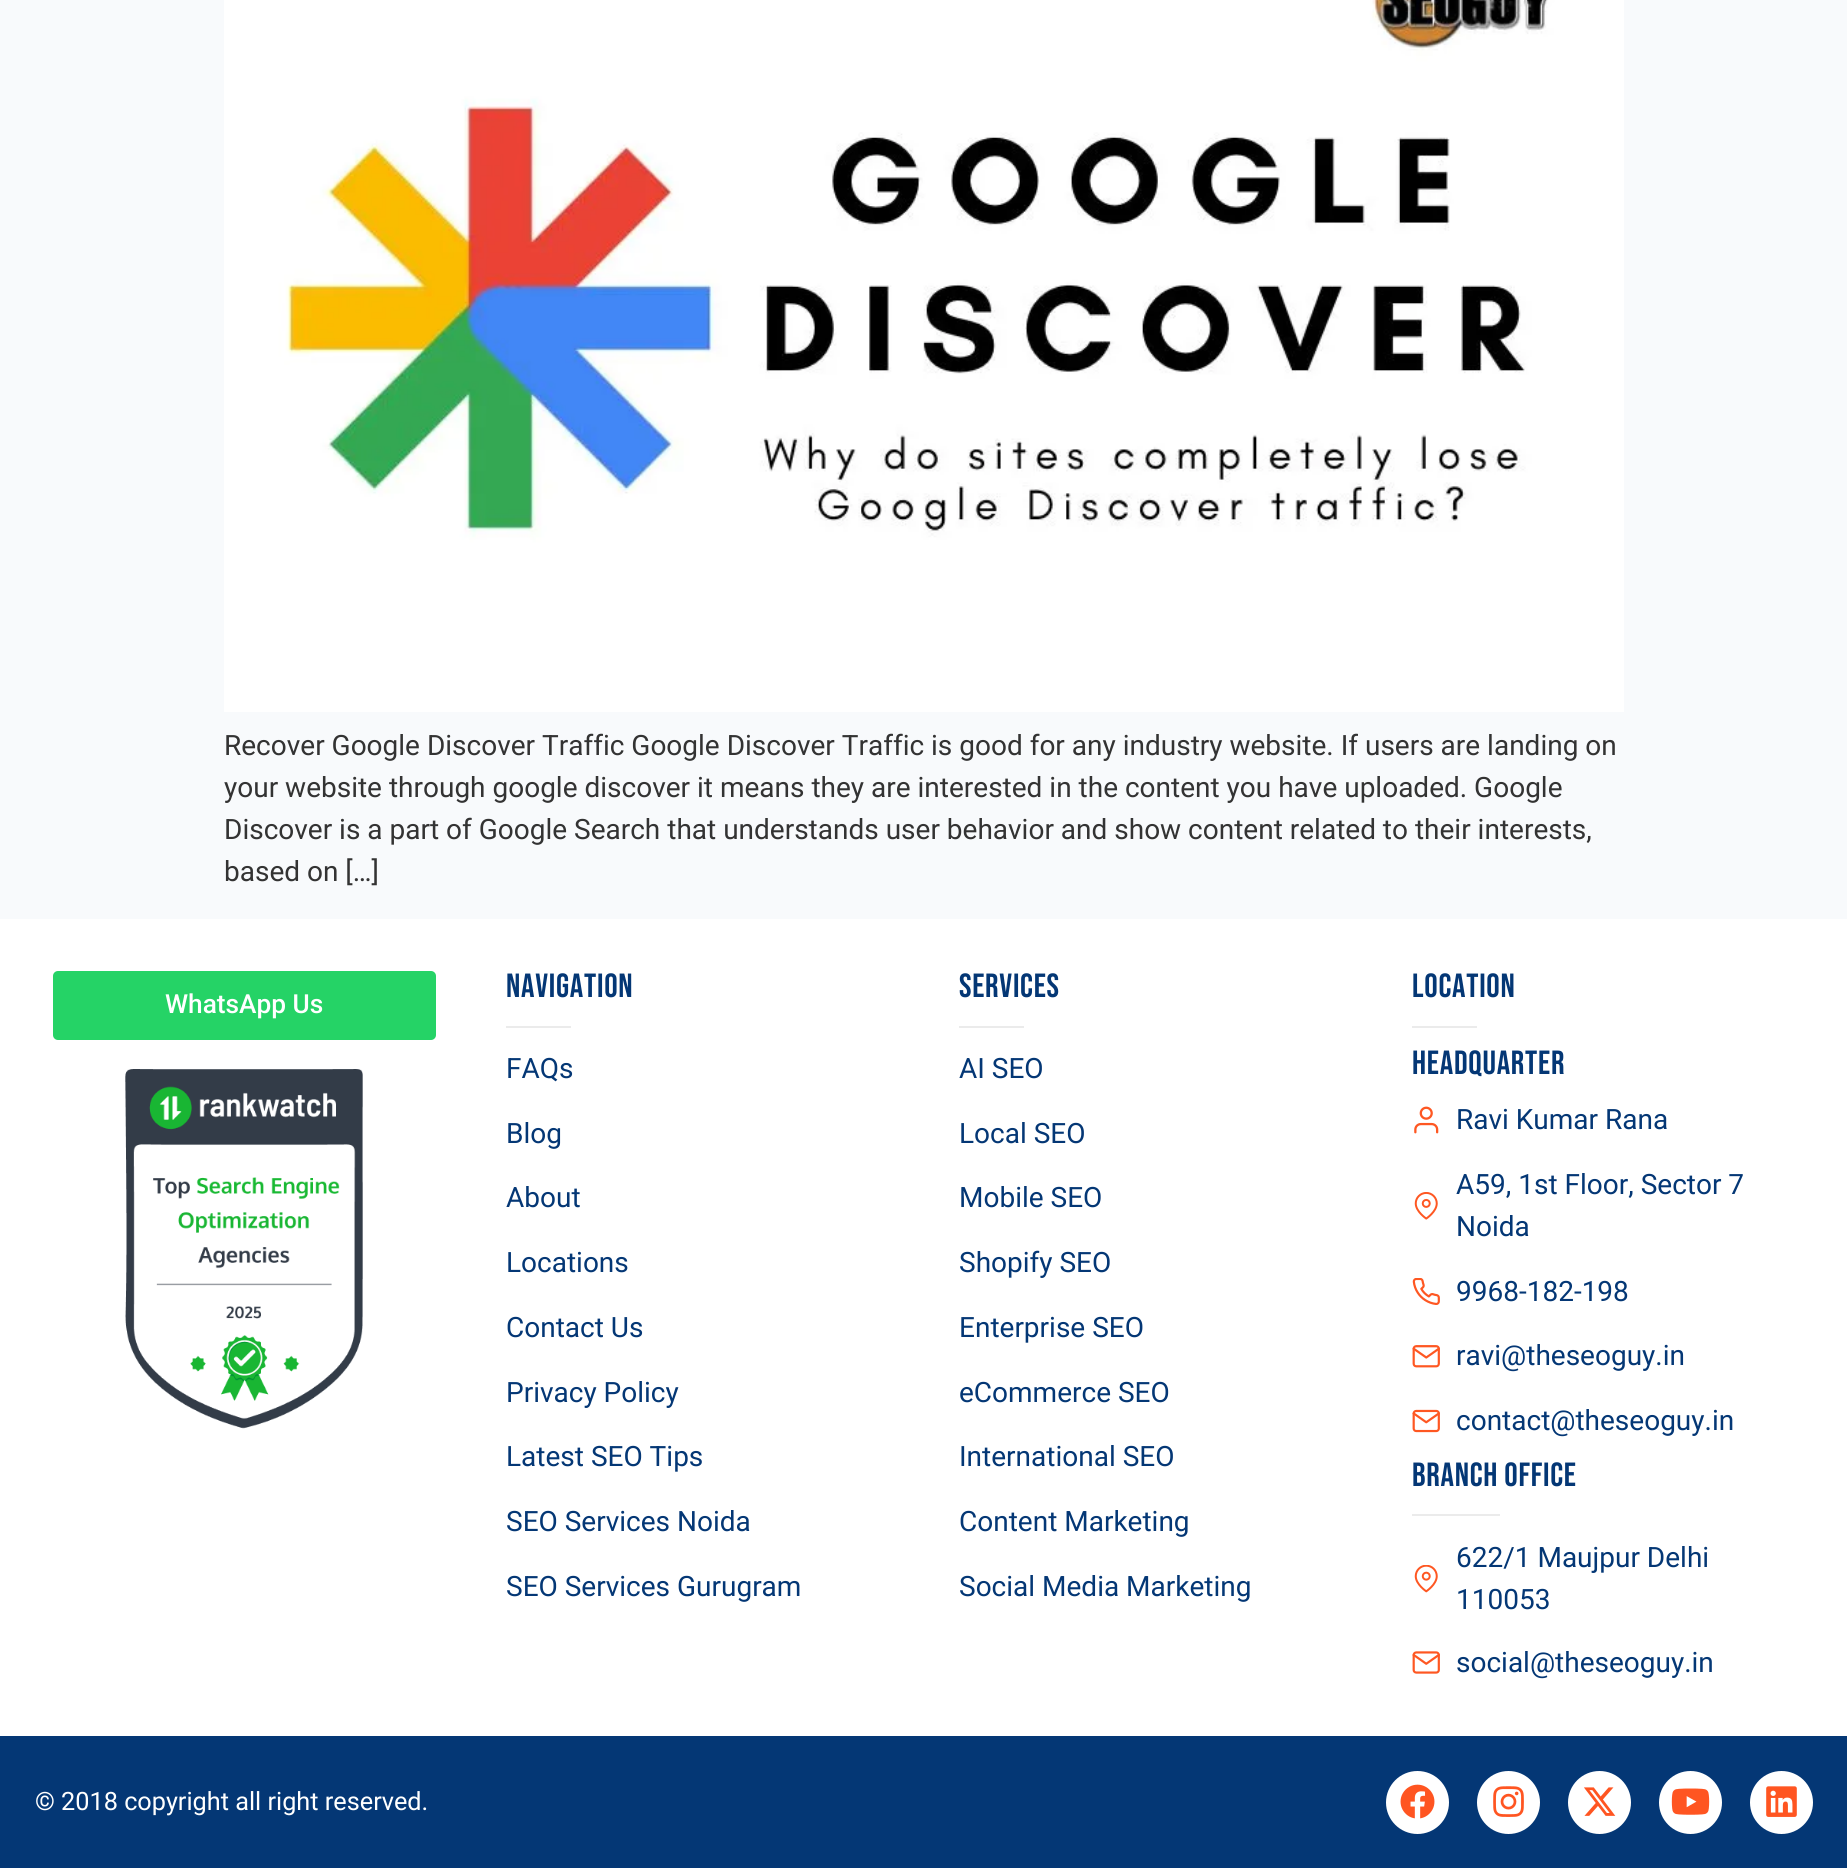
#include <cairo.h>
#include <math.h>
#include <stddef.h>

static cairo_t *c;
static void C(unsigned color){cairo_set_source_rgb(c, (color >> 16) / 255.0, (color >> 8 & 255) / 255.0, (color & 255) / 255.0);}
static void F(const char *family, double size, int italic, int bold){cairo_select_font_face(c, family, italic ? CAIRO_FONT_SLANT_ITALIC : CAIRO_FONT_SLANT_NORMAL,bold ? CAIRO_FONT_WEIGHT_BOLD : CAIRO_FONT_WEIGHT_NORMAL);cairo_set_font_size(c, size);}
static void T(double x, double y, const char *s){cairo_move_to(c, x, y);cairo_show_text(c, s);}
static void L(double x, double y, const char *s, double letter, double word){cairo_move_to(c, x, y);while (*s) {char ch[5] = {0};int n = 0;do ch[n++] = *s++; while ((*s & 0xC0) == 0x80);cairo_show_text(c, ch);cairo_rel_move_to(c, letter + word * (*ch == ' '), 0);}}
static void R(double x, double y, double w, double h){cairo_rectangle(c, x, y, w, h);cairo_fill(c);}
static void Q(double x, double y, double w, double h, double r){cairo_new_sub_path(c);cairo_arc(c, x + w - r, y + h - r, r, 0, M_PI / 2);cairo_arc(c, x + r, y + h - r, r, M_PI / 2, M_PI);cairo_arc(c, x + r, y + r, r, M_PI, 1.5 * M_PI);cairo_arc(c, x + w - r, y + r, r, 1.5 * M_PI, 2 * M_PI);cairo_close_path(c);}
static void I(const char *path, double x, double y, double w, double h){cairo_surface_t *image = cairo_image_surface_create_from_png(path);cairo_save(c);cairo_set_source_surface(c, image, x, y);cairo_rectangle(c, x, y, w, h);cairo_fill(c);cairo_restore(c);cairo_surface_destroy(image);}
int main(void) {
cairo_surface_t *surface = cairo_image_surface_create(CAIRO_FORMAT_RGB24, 1847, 1868);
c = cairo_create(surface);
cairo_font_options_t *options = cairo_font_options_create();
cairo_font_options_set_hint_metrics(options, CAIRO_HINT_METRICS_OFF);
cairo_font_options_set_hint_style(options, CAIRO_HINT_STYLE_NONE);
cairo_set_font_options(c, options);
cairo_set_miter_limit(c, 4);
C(0xf8fafc);
cairo_paint(c);
I("1.png",224,0,1400,712);
F("Roboto",28,0,0);
C(0x333333);
T(224,755,"Recover Google Discover Traffic Google Discover Traffic is good for any industry website. If users are landing on");
T(224,797,"your website through google discover it means they are interested in the content you have uploaded. Google");
T(224,839,"Discover is a part of Google Search that understands user behavior and show content related to their interests,");
T(224,881,"based on […]");
C(0xffffff);
R(0,919,1847,817);
C(0x25d366);
Q(53,971,383,69,5);
cairo_fill(c);
F("Roboto Medium",26.25,0,0);
C(0xffffff);
T(165,1013,"WhatsApp Us");
I("2.png",125,1069,238,360);
F("Bebas Neue",33.5,0,0);
C(0x043775);
L(506,997,"NAVIGATION",.75,0);
C(0xebebeb);
R(506,1026,65,2);
F("Roboto",28,0,0);
C(0x043775);
T(506,1078,"FAQs");
T(506,1143,"Blog");
T(506,1207,"About");
T(506,1272,"Locations");
T(506,1337,"Contact Us");
T(506,1402,"Privacy Policy");
T(506,1466,"Latest SEO Tips");
T(506,1531,"SEO Services Noida");
T(506,1596,"SEO Services Gurugram");
F("Bebas Neue",33.5,0,0);
L(959,997,"SERVICES",.75,0);
C(0xebebeb);
R(959,1026,65,2);
F("Roboto",28,0,0);
C(0x043775);
T(959,1078,"AI SEO");
T(959,1143,"Local SEO");
T(959,1207,"Mobile SEO");
T(959,1272,"Shopify SEO");
T(959,1337,"Enterprise SEO");
T(959,1402,"eCommerce SEO");
T(959,1466,"International SEO");
T(959,1531,"Content Marketing");
T(959,1596,"Social Media Marketing");
F("Bebas Neue",33.5,0,0);
L(1412,997,"LOCATION",.75,0);
C(0xebebeb);
R(1412,1026,65,2);
C(0x043775);
L(1412,1074,"Headquarter",.75,0);
I("3.png",1414,1106,25,28);
F("Roboto",28,0,0);
T(1456,1129,"Ravi Kumar Rana");
I("4.png",1414,1192,24,28);
T(1456,1194,"A59, 1st Floor, Sector 7");
T(1456,1236,"Noida");
I("5.png",1412,1278,28,27);
T(1456,1301,"9968-182-198");
I("6.png",1412,1345,28,23);
T(1456,1365,"ravi@theseoguy.in");
I("7.png",1412,1409,28,24);
T(1456,1430,"contact@theseoguy.in");
F("Bebas Neue",33.5,0,0);
L(1412,1486,"Branch Office",.75,0);
C(0xebebeb);
R(1412,1514,88,2);
I("8.png",1414,1565,24,28);
F("Roboto",28,0,0);
C(0x043775);
T(1456,1567,"622/1 Maujpur Delhi");
T(1456,1609,"110053");
I("9.png",1412,1651,28,23);
T(1456,1672,"social@theseoguy.in");
R(0,1736,1847,132);
F("Roboto",25.25,0,0);
C(0xffffff);
T(35,1810,"© 2018 copyright all right reserved.");
cairo_new_path(c);
cairo_arc(c,1417.5,1802.5,31.5,0,2 * M_PI);
cairo_fill(c);
I("10.png",1400,1784,35,35);
cairo_arc(c,1508.5,1802.5,31.5,0,2 * M_PI);
cairo_fill(c);
I("11.png",1493,1786,31,31);
cairo_arc(c,1599.5,1802.5,31.5,0,2 * M_PI);
cairo_fill(c);
I("12.png",1584,1787,32,29);
cairo_arc(c,1690.5,1802.5,31.5,0,2 * M_PI);
cairo_fill(c);
I("13.png",1671,1788,39,27);
cairo_arc(c,1781.5,1802.5,31.5,0,2 * M_PI);
cairo_fill(c);
I("14.png",1766,1786,31,31);
cairo_surface_write_to_png(surface, "o.png");
cairo_font_options_destroy(options);
cairo_destroy(c);
cairo_surface_destroy(surface);
return 0;
}
